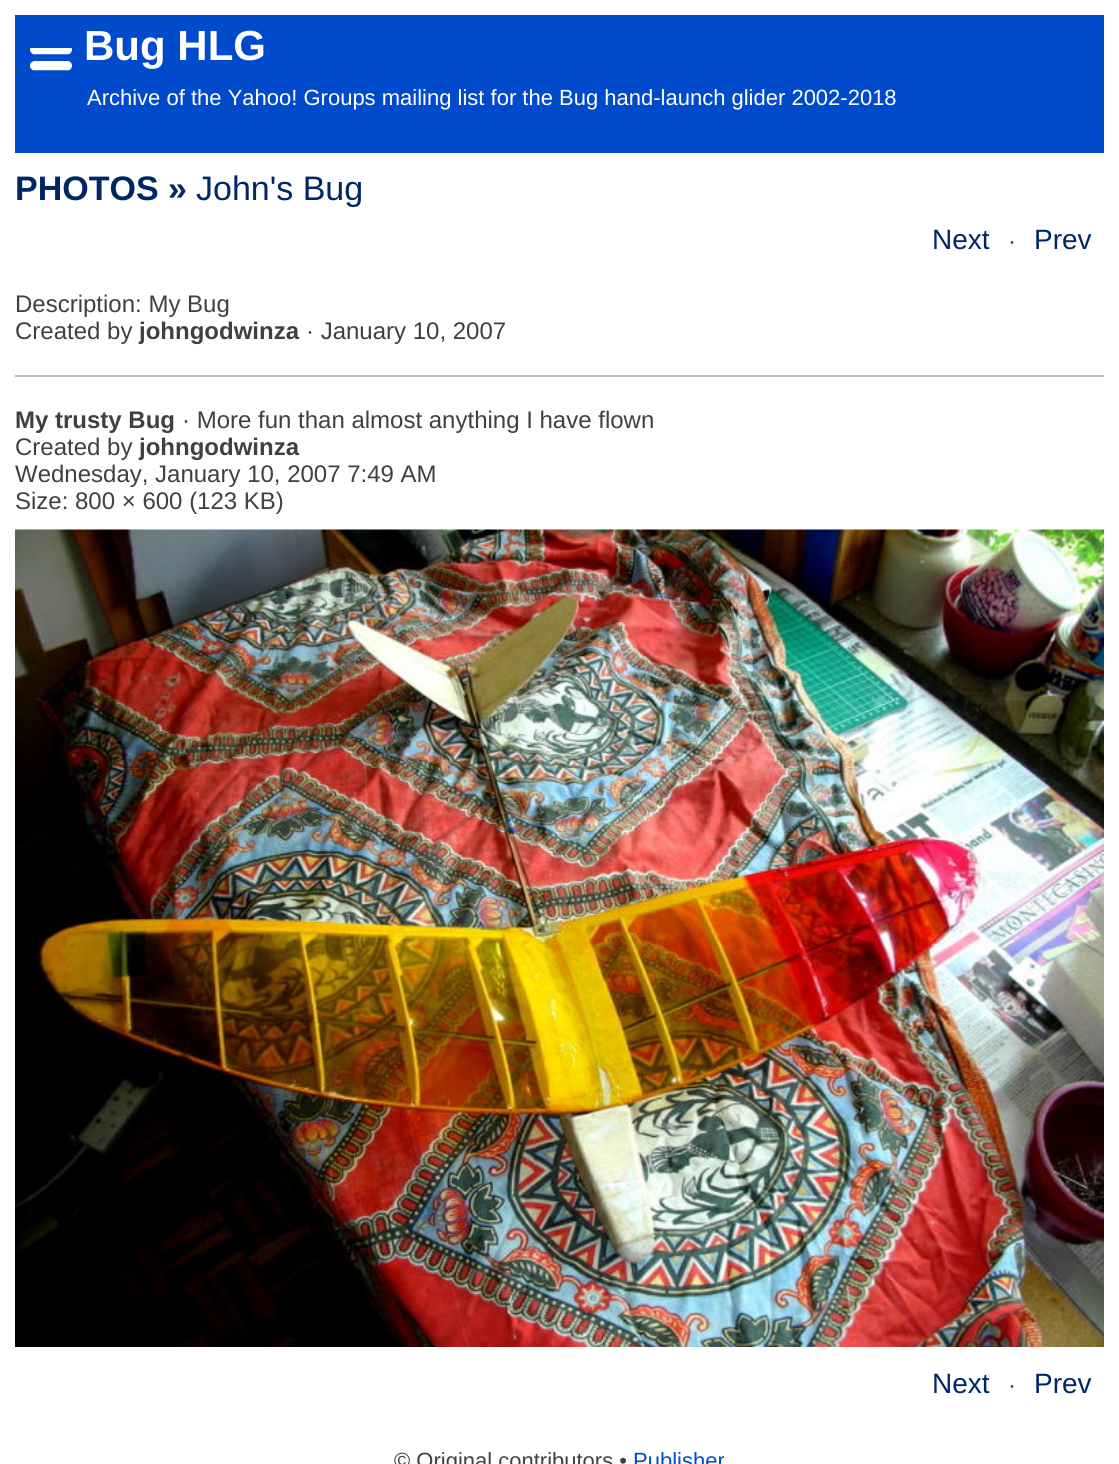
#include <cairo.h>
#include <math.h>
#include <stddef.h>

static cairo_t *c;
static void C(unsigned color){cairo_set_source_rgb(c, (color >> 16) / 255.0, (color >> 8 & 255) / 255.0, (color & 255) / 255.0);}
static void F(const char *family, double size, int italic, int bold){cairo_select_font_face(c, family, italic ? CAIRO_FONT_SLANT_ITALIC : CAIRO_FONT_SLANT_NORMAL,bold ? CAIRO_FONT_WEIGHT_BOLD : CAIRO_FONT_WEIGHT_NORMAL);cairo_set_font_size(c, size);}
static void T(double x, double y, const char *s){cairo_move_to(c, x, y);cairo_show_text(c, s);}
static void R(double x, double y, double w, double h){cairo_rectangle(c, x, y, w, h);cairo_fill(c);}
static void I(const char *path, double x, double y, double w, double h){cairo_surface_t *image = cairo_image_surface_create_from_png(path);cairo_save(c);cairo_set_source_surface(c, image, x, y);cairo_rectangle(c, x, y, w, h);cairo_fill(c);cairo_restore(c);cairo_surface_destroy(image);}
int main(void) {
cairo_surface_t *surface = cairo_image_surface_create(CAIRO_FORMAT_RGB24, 1119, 1464);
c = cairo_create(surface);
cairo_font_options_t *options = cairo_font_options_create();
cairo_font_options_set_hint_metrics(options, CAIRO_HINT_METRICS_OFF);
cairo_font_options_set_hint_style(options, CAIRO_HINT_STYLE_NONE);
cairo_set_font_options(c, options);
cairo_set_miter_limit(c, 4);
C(0xffffff);
cairo_paint(c);
C(0x004bcc);
R(15,15,1089,138);
I("1.png",30,48,42,23);
F("Liberation Sans",42,0,1);
C(0xffffff);
T(84,60,"Bug HLG");
F("Liberation Sans",22,0,0);
T(87,105,"Archive of the Yahoo! Groups mailing list for the Bug hand-launch glider 2002-2018");
F("Liberation Sans",34,0,1);
C(0x002666);
T(15,200,"PHOTOS »");
F("Liberation Sans",34,0,0);
T(196,200,"John's Bug");
F("Liberation Sans",28,0,0);
T(932,249,"Next");
F("Liberation Sans",24,0,0);
C(0x404040);
T(1008,249,"·");
F("Liberation Sans",28,0,0);
C(0x002666);
T(1034,249,"Prev");
F("Liberation Sans",24,0,0);
C(0x404040);
T(15,312,"Description: My Bug");
T(15,339,"Created by");
F("Liberation Sans",24,0,1);
T(139,339,"johngodwinza");
F("Liberation Sans",24,0,0);
T(306,339,"· January 10, 2007");
C(0xc0c0c0);
R(15,375,1089,2);
F("Liberation Sans",24,0,1);
C(0x404040);
T(15,428,"My trusty Bug");
F("Liberation Sans",24,0,0);
T(182,428,"· More fun than almost anything I have flown");
T(15,455,"Created by");
F("Liberation Sans",24,0,1);
T(139,455,"johngodwinza");
F("Liberation Sans",24,0,0);
T(15,482,"Wednesday, January 10, 2007 7:49 AM");
T(15,509,"Size: 800 × 600 (123 KB)");
I("2.png",15,529,1089,818);
F("Liberation Sans",28,0,0);
C(0x002666);
T(932,1393,"Next");
F("Liberation Sans",24,0,0);
C(0x404040);
T(1008,1393,"·");
F("Liberation Sans",28,0,0);
C(0x002666);
T(1034,1393,"Prev");
F("Liberation Sans",22,0,0);
C(0x404040);
T(394,1468,"© Original contributors •");
C(0x004bcc);
T(633,1468,"Publisher");
cairo_surface_write_to_png(surface, "o.png");
cairo_font_options_destroy(options);
cairo_destroy(c);
cairo_surface_destroy(surface);
return 0;
}
